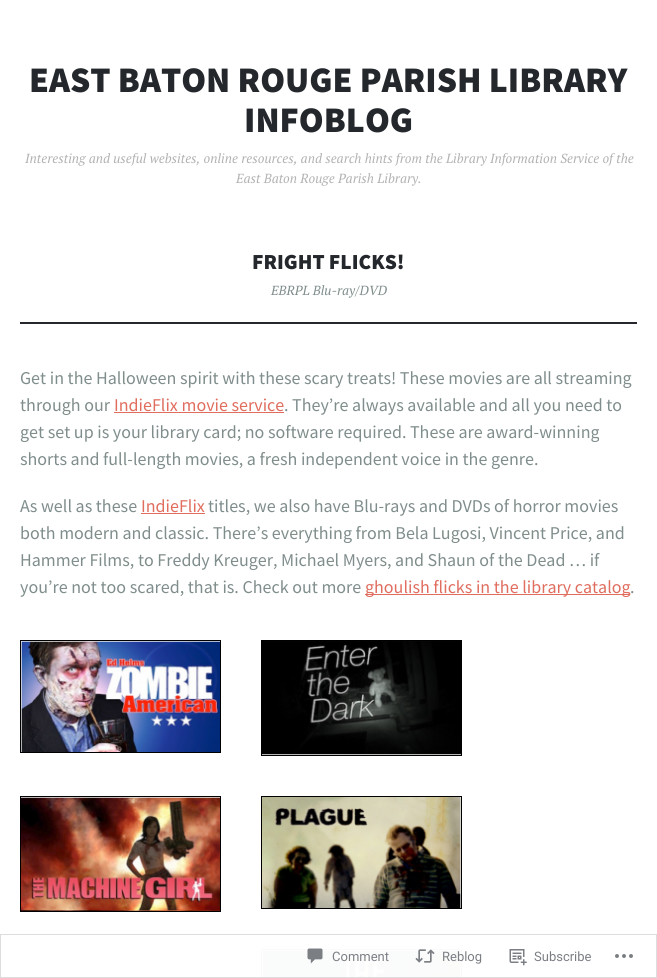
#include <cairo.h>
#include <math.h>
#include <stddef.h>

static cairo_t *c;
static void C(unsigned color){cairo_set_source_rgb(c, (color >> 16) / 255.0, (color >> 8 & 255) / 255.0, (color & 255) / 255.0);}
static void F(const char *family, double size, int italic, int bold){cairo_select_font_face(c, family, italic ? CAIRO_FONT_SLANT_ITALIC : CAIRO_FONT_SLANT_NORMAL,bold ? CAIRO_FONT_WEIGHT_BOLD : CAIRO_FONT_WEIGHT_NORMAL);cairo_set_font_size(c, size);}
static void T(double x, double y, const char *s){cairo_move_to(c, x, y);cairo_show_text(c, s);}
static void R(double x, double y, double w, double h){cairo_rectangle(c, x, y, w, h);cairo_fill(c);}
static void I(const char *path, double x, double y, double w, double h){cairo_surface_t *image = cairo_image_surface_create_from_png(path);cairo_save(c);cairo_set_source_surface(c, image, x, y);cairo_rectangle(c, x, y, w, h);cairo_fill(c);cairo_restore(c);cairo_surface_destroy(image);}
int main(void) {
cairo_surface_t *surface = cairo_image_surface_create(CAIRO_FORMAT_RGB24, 657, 978);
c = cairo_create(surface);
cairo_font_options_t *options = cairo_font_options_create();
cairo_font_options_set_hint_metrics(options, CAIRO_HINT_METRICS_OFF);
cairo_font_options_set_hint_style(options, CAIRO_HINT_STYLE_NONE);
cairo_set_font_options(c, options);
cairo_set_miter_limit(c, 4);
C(0xffffff);
cairo_paint(c);
F("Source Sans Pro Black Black",36,0,0);
C(0x24282d);
T(29,92,"EAST BATON ROUGE PARISH LIBRARY");
T(244,132,"INFOBLOG");
F("PT Serif",13.15,1,0);
C(0xb1b2b3);
T(25,163,"Interesting and useful websites, online resources, and search hints from the Library Information Service of the");
T(236,183,"East Baton Rouge Parish Library.");
F("Source Sans Pro Black Black",21.5,0,0);
C(0x24282d);
T(252,269,"FRIGHT FLICKS!");
F("PT Serif",13.15,1,0);
C(0x7f8d8c);
T(271,295,"EBRPL Blu-ray/DVD");
C(0x24282d);
R(20,322,617,2);
F("Source Sans Pro",18,0,0);
C(0x7f8d8c);
T(20,384,"Get in the Halloween spirit with these scary treats! These movies are all streaming");
T(20,411,"through our");
C(0xe06d5e);
T(114,411,"IndieFlix movie service");
R(114,412,170,1);
C(0x7f8d8c);
T(284,411,". They’re always available and all you need to");
T(20,438,"get set up is your library card; no software required. These are award-winning");
T(20,465,"shorts and full-length movies, a fresh independent voice in the genre.");
T(20,512,"As well as these");
C(0xe06d5e);
T(141,512,"IndieFlix");
R(141,513,64,1);
C(0x7f8d8c);
T(208,512,"titles, we also have Blu-rays and DVDs of horror movies");
T(20,539,"both modern and classic. There’s everything from Bela Lugosi, Vincent Price, and");
T(20,566,"Hammer Films, to Freddy Kreuger, Michael Myers, and Shaun of the Dead … if");
T(20,593,"you’re not too scared, that is. Check out more");
C(0xe06d5e);
R(365,594,265,1);
T(365,593,"ghoulish flicks in the library catalog");
C(0x7f8d8c);
T(630,593,".");
cairo_rectangle(c,20.5,640.5,200,112);
C(0x000000);
cairo_set_line_width(c,1);
cairo_stroke(c);
I("1.png",21,641,199,111);
cairo_rectangle(c,261.5,640.5,200,115);
cairo_stroke(c);
I("2.png",262,641,199,114);
cairo_rectangle(c,20.5,796.5,200,115);
cairo_stroke(c);
I("3.png",21,797,199,114);
cairo_rectangle(c,261.5,796.5,200,112);
cairo_stroke(c);
I("4.png",262,797,199,111);
cairo_rectangle(c,261.5,949.5,200,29);
C(0xfafafa);
cairo_stroke(c);
I("5.png",262,950,199,28);
cairo_rectangle(c,.5,934.5,656,43);
cairo_set_source_rgba(c,0.863,0.863,0.871,0.98);
cairo_stroke(c);
I("6.png",307,948,16,16);
F("Roboto",13,0,0);
C(0x7b7f84);
T(332,961,"Comment");
I("7.png",415,949,20,14);
T(442,961,"Reblog");
I("8.png",509,949,18,17);
T(534,961,"Subscribe");
I("9.png",615,954,18,4);
cairo_surface_write_to_png(surface, "o.png");
cairo_font_options_destroy(options);
cairo_destroy(c);
cairo_surface_destroy(surface);
return 0;
}
